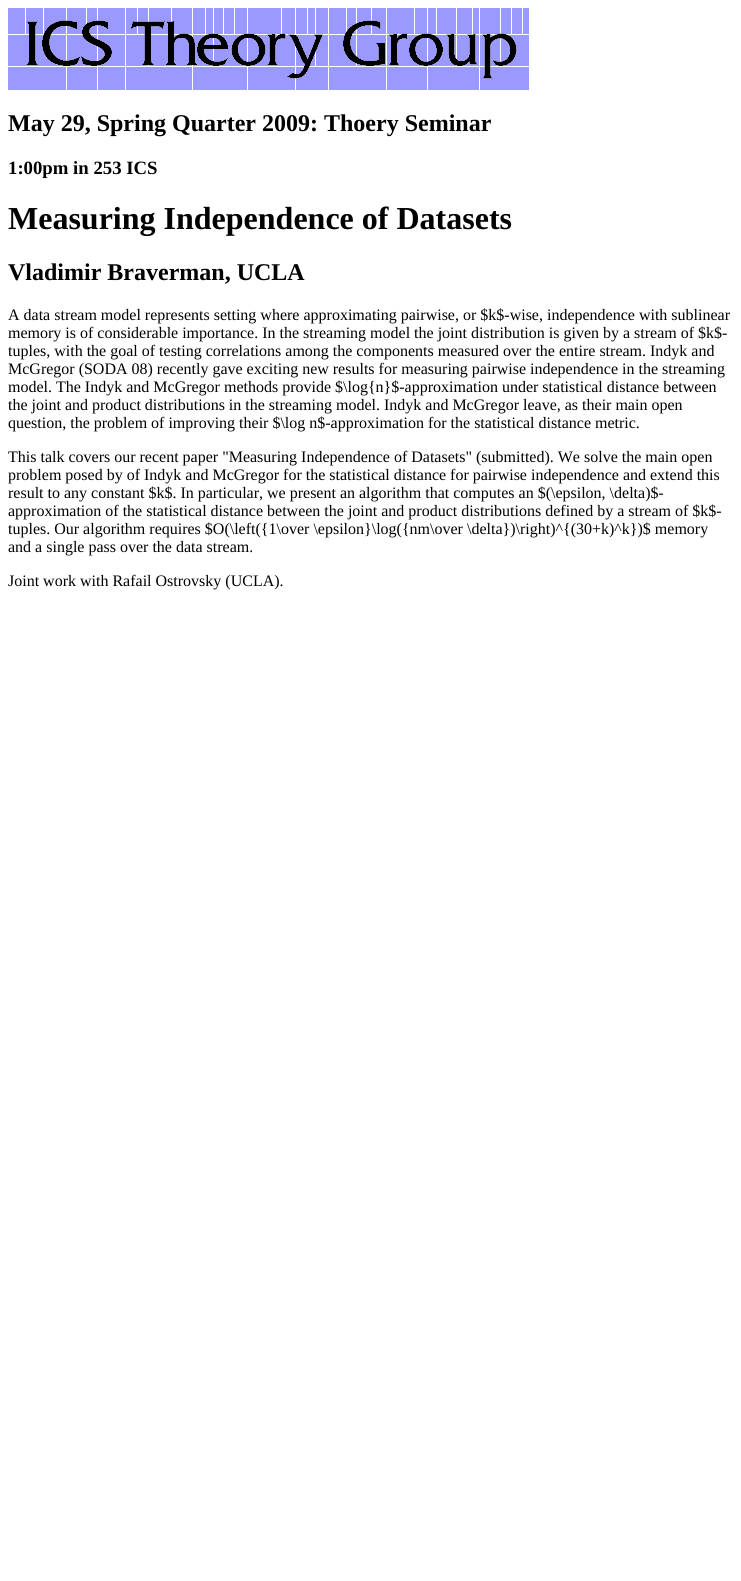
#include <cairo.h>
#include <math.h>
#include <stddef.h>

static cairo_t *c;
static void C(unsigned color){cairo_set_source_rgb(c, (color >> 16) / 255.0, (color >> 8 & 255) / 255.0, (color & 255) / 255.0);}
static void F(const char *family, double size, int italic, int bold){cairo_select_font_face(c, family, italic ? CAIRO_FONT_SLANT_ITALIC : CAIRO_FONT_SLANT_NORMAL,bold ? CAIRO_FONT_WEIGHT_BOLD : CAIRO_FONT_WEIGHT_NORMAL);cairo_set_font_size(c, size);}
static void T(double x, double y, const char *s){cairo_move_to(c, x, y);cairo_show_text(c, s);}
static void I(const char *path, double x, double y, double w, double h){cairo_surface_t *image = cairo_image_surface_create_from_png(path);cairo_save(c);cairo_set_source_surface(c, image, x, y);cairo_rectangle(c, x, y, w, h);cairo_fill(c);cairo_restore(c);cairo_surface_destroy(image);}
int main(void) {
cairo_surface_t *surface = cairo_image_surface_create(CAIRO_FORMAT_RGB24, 741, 1581);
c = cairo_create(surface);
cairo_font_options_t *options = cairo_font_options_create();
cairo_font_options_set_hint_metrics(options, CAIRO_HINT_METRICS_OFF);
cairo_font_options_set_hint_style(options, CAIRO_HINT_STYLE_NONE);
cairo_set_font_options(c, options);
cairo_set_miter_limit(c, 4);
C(0xffffff);
cairo_paint(c);
I("1.png",8,8,521,82);
F("Liberation Serif",24,0,1);
C(0x000000);
T(8,131,"May 29, Spring Quarter 2009: Thoery Seminar");
F("Liberation Serif",18.75,0,1);
T(8,174,"1:00pm in 253 ICS");
F("Liberation Serif",32,0,1);
T(8,229,"Measuring Independence of Datasets");
F("Liberation Serif",24,0,1);
T(8,280,"Vladimir Braverman, UCLA");
F("Liberation Serif",16,0,0);
T(8,320,"A data stream model represents setting where approximating pairwise, or $k$-wise, independence with sublinear");
T(8,338,"memory is of considerable importance. In the streaming model the joint distribution is given by a stream of $k$-");
T(8,356,"tuples, with the goal of testing correlations among the components measured over the entire stream. Indyk and");
T(8,374,"McGregor (SODA 08) recently gave exciting new results for measuring pairwise independence in the streaming");
T(8,392,"model. The Indyk and McGregor methods provide $\\log{n}$-approximation under statistical distance between");
T(8,410,"the joint and product distributions in the streaming model. Indyk and McGregor leave, as their main open");
T(8,428,"question, the problem of improving their $\\log n$-approximation for the statistical distance metric.");
T(8,462,"This talk covers our recent paper \"Measuring Independence of Datasets\" (submitted). We solve the main open");
T(8,480,"problem posed by of Indyk and McGregor for the statistical distance for pairwise independence and extend this");
T(8,498,"result to any constant $k$. In particular, we present an algorithm that computes an $(\\epsilon, \\delta)$-");
T(8,516,"approximation of the statistical distance between the joint and product distributions defined by a stream of $k$-");
T(8,534,"tuples. Our algorithm requires $O(\\left({1\\over \\epsilon}\\log({nm\\over \\delta})\\right)^{(30+k)^k})$ memory");
T(8,552,"and a single pass over the data stream.");
T(8,586,"Joint work with Rafail Ostrovsky (UCLA).");
cairo_surface_write_to_png(surface, "o.png");
cairo_font_options_destroy(options);
cairo_destroy(c);
cairo_surface_destroy(surface);
return 0;
}
